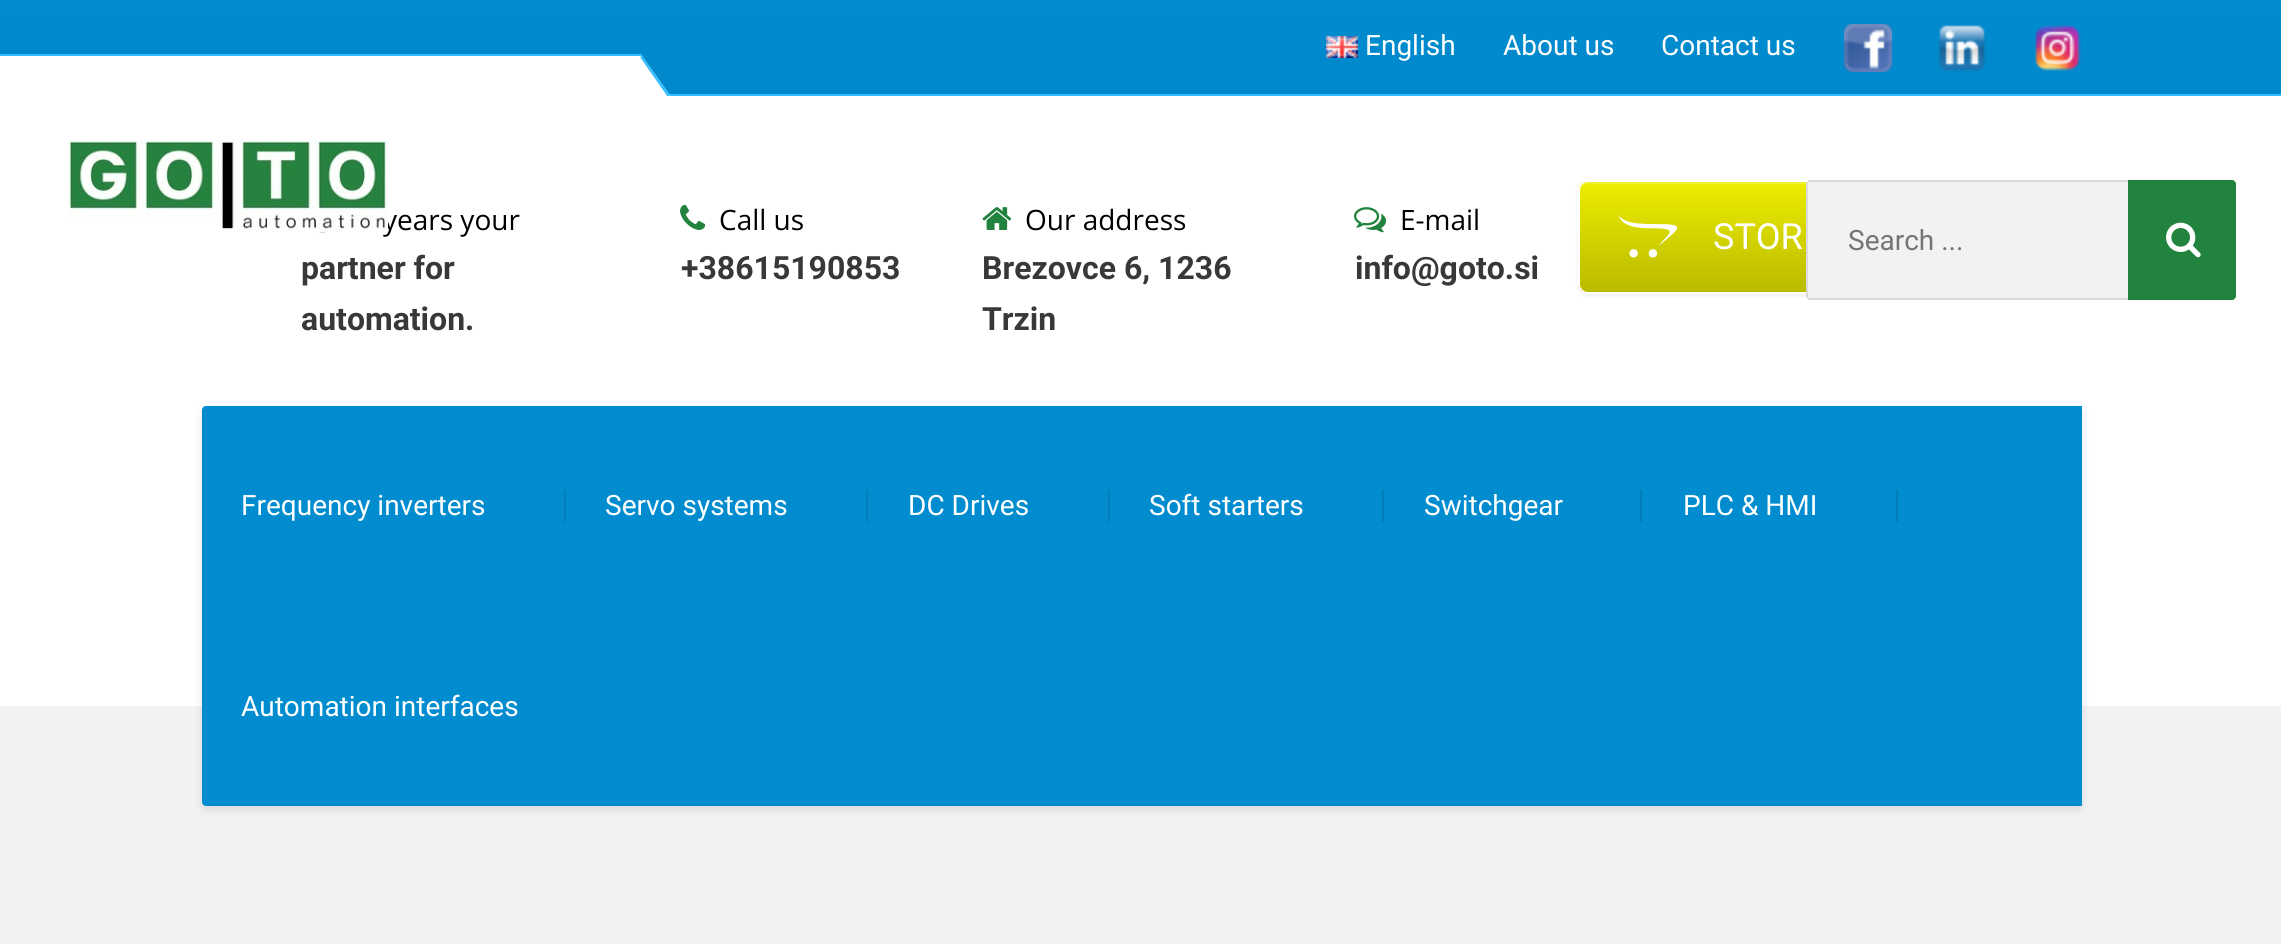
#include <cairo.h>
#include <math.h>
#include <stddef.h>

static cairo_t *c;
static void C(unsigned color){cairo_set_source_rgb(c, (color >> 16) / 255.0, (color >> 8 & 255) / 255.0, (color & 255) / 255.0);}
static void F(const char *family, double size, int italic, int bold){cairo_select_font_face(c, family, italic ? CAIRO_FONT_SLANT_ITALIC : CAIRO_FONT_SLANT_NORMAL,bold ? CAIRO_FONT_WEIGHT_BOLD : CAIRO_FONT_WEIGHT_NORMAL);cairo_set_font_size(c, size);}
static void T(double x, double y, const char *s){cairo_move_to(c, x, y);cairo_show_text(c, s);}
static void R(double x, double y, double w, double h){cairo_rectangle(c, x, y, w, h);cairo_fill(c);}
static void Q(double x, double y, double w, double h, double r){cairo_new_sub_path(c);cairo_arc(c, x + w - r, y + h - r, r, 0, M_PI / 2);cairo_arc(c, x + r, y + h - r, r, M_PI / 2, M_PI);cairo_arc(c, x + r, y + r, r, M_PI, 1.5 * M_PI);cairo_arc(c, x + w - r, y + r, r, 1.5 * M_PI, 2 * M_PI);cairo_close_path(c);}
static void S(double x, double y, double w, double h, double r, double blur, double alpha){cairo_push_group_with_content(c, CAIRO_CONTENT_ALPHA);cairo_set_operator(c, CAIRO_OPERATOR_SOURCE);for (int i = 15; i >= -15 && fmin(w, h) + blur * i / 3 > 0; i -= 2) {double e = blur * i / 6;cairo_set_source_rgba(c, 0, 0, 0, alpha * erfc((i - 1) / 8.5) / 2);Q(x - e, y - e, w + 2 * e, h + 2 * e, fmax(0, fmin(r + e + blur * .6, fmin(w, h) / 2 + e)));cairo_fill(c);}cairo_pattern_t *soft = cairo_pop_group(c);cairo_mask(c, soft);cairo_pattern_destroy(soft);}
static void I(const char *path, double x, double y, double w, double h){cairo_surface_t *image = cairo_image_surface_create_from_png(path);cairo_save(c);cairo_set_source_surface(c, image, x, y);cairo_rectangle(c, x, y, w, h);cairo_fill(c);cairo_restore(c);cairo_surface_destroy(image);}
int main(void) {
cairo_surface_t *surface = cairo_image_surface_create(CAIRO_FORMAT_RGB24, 2281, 944);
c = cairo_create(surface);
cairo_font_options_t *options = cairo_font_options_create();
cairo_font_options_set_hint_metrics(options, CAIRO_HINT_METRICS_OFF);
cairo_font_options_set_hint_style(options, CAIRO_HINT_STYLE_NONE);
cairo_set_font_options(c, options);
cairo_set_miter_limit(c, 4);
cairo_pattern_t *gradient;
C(0xf2f2f2);
cairo_paint(c);
gradient = cairo_pattern_create_linear(1141,0,1141,94);
cairo_pattern_add_color_stop_rgba(gradient,0,0,0.549,0.812,1);
cairo_pattern_add_color_stop_rgba(gradient,1,0,0.537,0.8,1);
cairo_set_source(c,gradient);
cairo_pattern_destroy(gradient);
R(0,0,2281,94);
C(0x33bfff);
R(669,94,1612,2);
I("1.png",1326,36,32,22);
F("Roboto",28,0,0);
C(0xffffff);
T(1365,55,"English");
T(1503,55,"About us");
T(1661,55,"Contact us");
I("2.png",1844,24,48,48);
I("3.png",1938,25,48,47);
I("4.png",2035,25,46,46);
R(0,56,642,40);
C(0x33bfff);
R(0,54,642,2);
C(0xffffff);
cairo_new_path(c);
cairo_move_to(c,674,101);
cairo_line_to(c,628,134);
cairo_line_to(c,596,88);
cairo_line_to(c,642,56);
cairo_close_path(c);
cairo_fill(c);
C(0x33bfff);
cairo_new_path(c);
cairo_move_to(c,674,101);
cairo_line_to(c,672,103);
cairo_line_to(c,640,57);
cairo_line_to(c,642,56);
cairo_close_path(c);
cairo_fill(c);
C(0xffffff);
R(0,96,2281,610);
F("Open Sans",28,0,0);
C(0x000000);
T(383,230,"years your");
I("5.png",68,140,320,92);
I("6.png",319,232,7,1);
F("Roboto",32,0,1);
C(0x383838);
T(301,279,"partner for");
T(301,330,"automation.");
I("7.png",680,204,26,26);
F("Open Sans",28,0,0);
C(0x000000);
T(719,230,"Call us");
F("Roboto",32,0,1);
C(0x383838);
T(681,279,"+38615190853");
I("8.png",982,207,30,23);
F("Open Sans",28,0,0);
C(0x000000);
T(1025,230,"Our address");
F("Roboto",32,0,1);
C(0x383838);
T(982,279,"Brezovce 6, 1236");
T(982,330,"Trzin");
I("9.png",1354,207,32,26);
F("Open Sans",28,0,0);
C(0x000000);
T(1400,230,"E-mail");
F("Roboto",32,0,1);
C(0x383838);
T(1355,279,"info@goto.si");
C(0x000000);
S(1578,182,322,114,10,2,.07);
cairo_save(c);
Q(1578,180,322,114,10);
cairo_clip(c);
gradient = cairo_pattern_create_linear(1580,292,1580,182);
cairo_pattern_add_color_stop_rgba(gradient,0,0.729,0.729,0,1);
cairo_pattern_add_color_stop_rgba(gradient,1,0.929,0.929,0,1);
cairo_set_source(c,gradient);
cairo_pattern_destroy(gradient);
R(1578,182,228,110);
cairo_restore(c);
C(0xf0f033);
cairo_new_path(c);
cairo_move_to(c,1587,184);
cairo_line_to(c,1891,184);
cairo_curve_to(c,1895,184,1898,187,1898,191);
cairo_line_to(c,1898,190);
cairo_curve_to(c,1898,186,1894,182,1890,182);
cairo_line_to(c,1588,182);
cairo_curve_to(c,1584,182,1580,186,1580,190);
cairo_line_to(c,1580,191);
cairo_curve_to(c,1580,187,1583,184,1587,184);
cairo_close_path(c);
cairo_fill(c);
Q(1579,181,320,112,9);
C(0xffffff);
cairo_stroke(c);
I("10.png",1618,215,60,43);
F("Roboto",36,0,0);
T(1713,249,"STOR");
C(0xf2f2f2);
cairo_new_path(c);
cairo_move_to(c,1810,180);
cairo_line_to(c,2128,180);
cairo_line_to(c,2128,300);
cairo_line_to(c,1810,300);
cairo_curve_to(c,1808,300,1806,298,1806,296);
cairo_line_to(c,1806,184);
cairo_curve_to(c,1806,182,1808,180,1810,180);
cairo_close_path(c);
cairo_fill(c);
cairo_set_source_rgba(c,0,0,0,0.1);
R(1808,180,320,2);
R(1808,298,320,2);
R(1806,182,2,116);
F("Roboto",28,0,0);
C(0x757575);
T(1848,250,"Search ...");
C(0x21833d);
cairo_new_path(c);
cairo_move_to(c,2128,180);
cairo_line_to(c,2232,180);
cairo_curve_to(c,2234,180,2236,182,2236,184);
cairo_line_to(c,2236,296);
cairo_curve_to(c,2236,298,2234,300,2232,300);
cairo_line_to(c,2128,300);
cairo_close_path(c);
cairo_fill(c);
I("11.png",2166,222,35,36);
C(0x000000);
S(202,410,1880,400,4,4,.1);
C(0x008ccf);
Q(202,406,1880,400,4);
cairo_fill(c);
C(0xffffff);
T(241,515,"Frequency inverters");
C(0x007eba);
R(564,490,2,32);
C(0xffffff);
T(605,515,"Servo systems");
C(0x007eba);
R(866,490,2,32);
C(0xffffff);
T(908,515,"DC Drives");
C(0x007eba);
R(1108,490,2,32);
C(0xffffff);
T(1149,515,"Soft starters");
C(0x007eba);
R(1382,490,2,32);
C(0xffffff);
T(1424,515,"Switchgear");
C(0x007eba);
R(1640,490,2,32);
C(0xffffff);
T(1683,515,"PLC & HMI");
C(0x007eba);
R(1896,490,2,32);
C(0xffffff);
T(241,716,"Automation interfaces");
C(0x008ccf);
R(2078,406,4,400);
cairo_surface_write_to_png(surface, "o.png");
cairo_font_options_destroy(options);
cairo_destroy(c);
cairo_surface_destroy(surface);
return 0;
}
